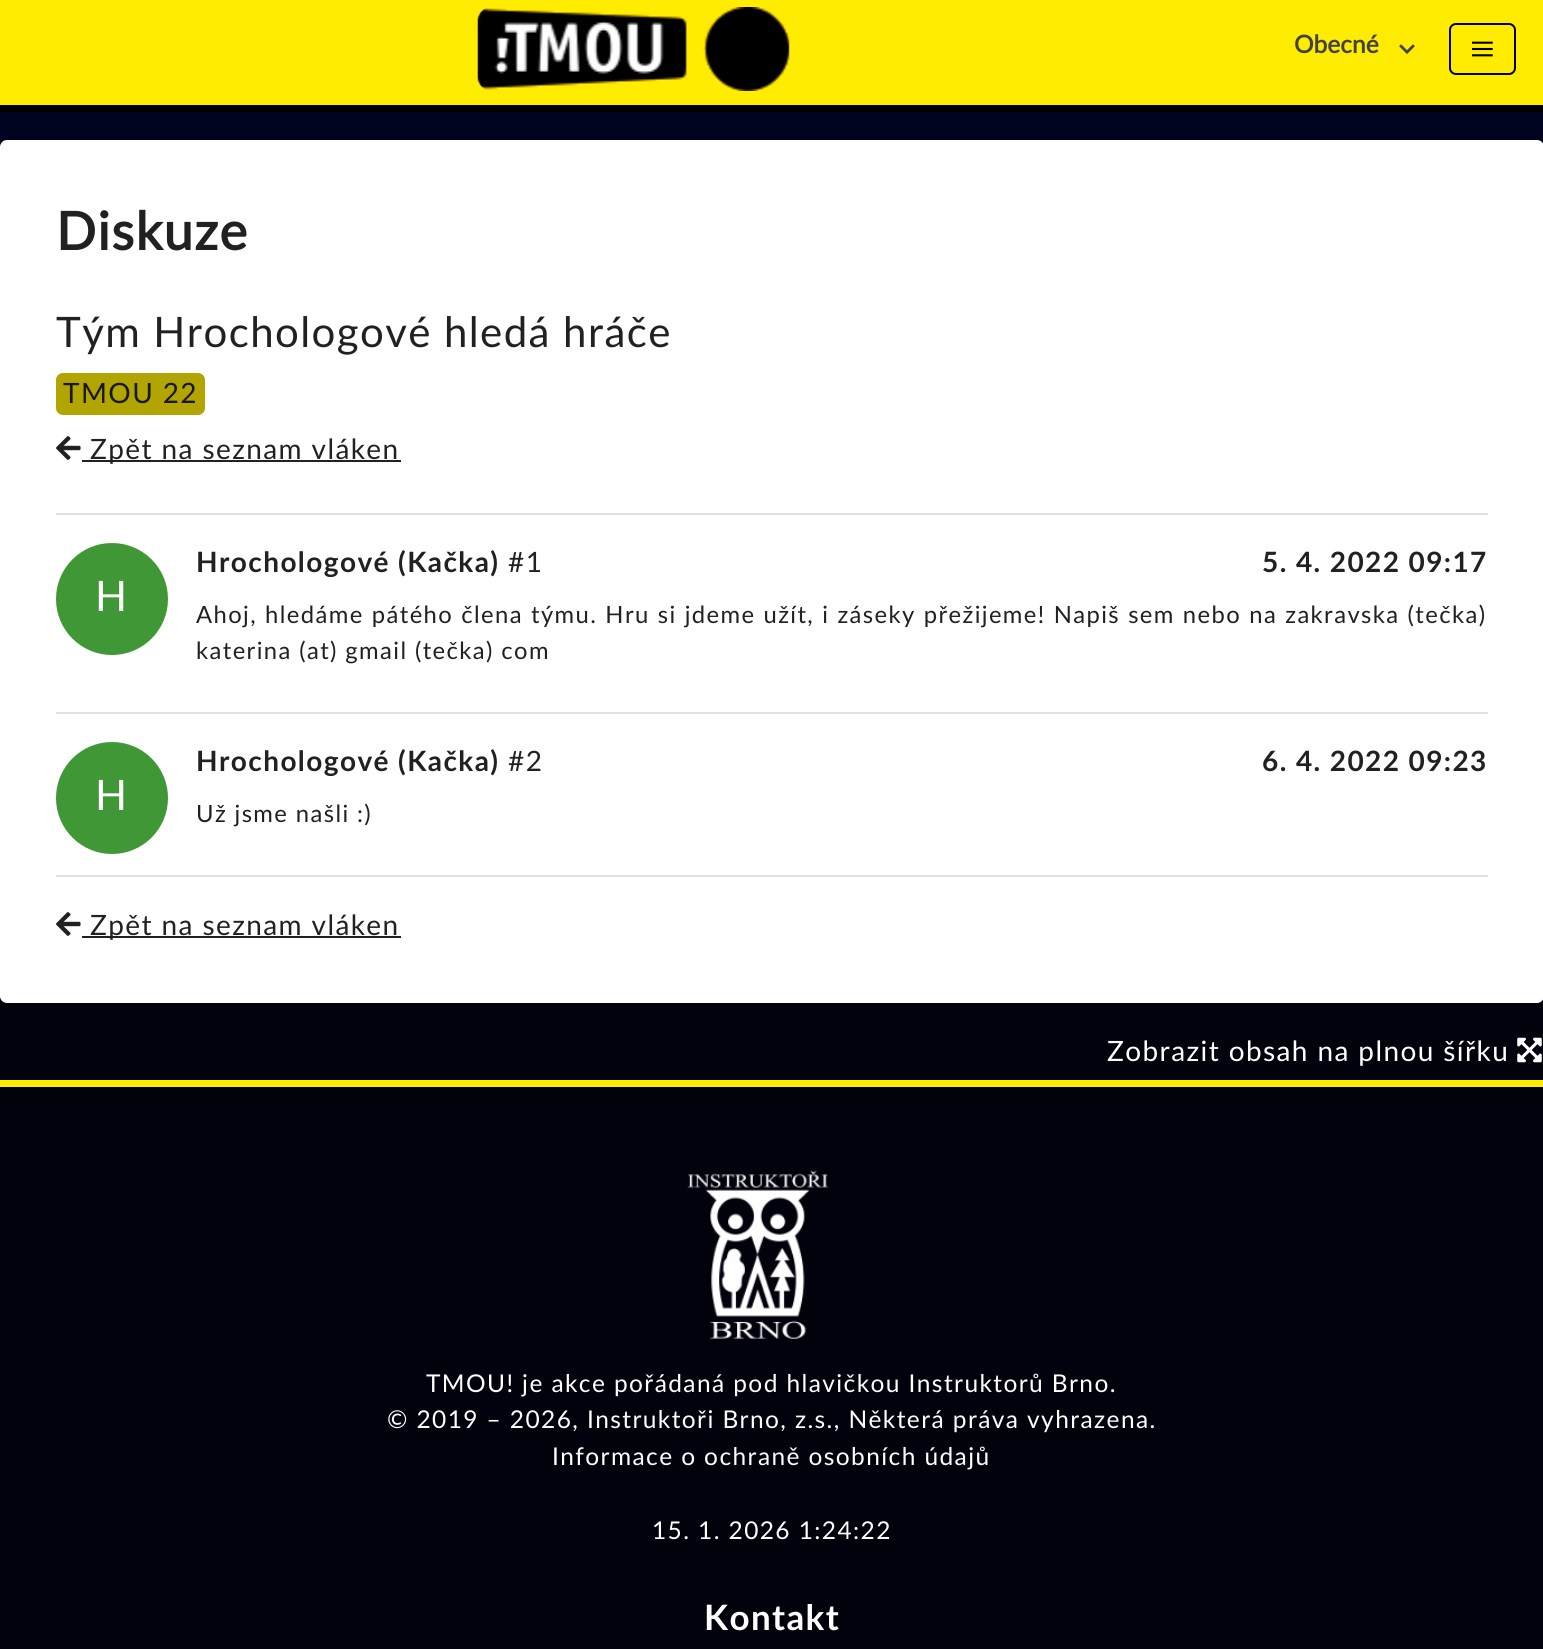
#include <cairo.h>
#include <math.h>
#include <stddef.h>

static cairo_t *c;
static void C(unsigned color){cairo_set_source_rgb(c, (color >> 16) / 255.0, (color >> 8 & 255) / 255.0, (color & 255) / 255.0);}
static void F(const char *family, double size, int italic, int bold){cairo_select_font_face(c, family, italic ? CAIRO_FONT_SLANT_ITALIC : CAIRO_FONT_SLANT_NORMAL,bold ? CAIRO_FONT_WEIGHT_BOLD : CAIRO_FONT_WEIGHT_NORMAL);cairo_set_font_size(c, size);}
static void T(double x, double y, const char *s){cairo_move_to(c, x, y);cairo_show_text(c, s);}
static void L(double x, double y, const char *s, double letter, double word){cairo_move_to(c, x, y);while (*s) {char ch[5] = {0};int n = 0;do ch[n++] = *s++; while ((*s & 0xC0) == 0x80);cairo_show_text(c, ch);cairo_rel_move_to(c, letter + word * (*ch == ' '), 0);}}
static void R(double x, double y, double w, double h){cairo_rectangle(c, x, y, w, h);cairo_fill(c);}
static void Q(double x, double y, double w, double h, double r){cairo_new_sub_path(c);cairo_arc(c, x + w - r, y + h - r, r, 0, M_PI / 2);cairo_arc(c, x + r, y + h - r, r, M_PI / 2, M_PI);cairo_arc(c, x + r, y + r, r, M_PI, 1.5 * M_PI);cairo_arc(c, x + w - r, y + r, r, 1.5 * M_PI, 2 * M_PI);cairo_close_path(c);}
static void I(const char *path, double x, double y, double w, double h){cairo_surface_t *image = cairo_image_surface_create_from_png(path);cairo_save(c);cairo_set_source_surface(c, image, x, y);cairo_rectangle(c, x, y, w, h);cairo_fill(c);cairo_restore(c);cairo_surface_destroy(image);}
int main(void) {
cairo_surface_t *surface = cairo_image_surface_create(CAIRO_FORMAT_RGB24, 1543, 1649);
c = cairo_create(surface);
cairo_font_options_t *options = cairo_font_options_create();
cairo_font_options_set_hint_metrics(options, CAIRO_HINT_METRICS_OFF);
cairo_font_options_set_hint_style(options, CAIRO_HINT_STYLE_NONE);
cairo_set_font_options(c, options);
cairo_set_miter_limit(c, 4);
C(0x01020c);
cairo_paint(c);
C(0xffec01);
R(0,0,1543,105);
C(0x000000);
R(0,105,1543,7);
I("1.png",477,7,313,84);
F("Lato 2",24.5,0,1);
C(0x424242);
T(1294,53,"Obecné");
I("2.png",1399,44,16,10);
Q(1450,24,65,50,6);
C(0x000000);
cairo_stroke(c);
I("3.png",1472,41,21,16);
C(0x00031f);
R(0,112,1543,35);
I("7.png",0,996,1543,324);
C(0xffffff);
Q(0,140,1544,863,7);
cairo_fill(c);
F("Lato 2",52.5,0,1);
C(0x212121);
L(56,250,"Diskuze",1.4,0);
F("Lato",42,0,0);
L(56,347,"Tým Hrochologové hledá hráče",1.4,0);
C(0xb3a501);
Q(56,373,149,42,7);
cairo_fill(c);
F("Lato",28,0,0);
C(0x171717);
L(63,403,"TMOU 22",1.4,0);
I("4.png",56,436,25,24);
C(0x212121);
R(82,460,319,2);
L(90,459,"Zpět na seznam vláken",1.4,0);
C(0xe0e0e0);
R(56,513,1432,2);
F("Lato",28,0,1);
C(0x212121);
L(196,572,"Hrochologové (Kačka)",1.4,0);
F("Lato",28,0,0);
L(508,572,"#1",1.4,0);
F("Lato",28,0,1);
L(1262,572,"5. 4. 2022 09:17",1.4,0);
C(0x3f9735);
cairo_new_path(c);
cairo_arc(c,112,599,56,0,2 * M_PI);
cairo_fill(c);
F("Lato",42,0,0);
C(0xffffff);
L(95,611,"H",1.4,0);
F("Lato",23.8,0,0);
C(0x212121);
L(196,623,"Ahoj, hledáme pátého člena týmu. Hru si jdeme užít, i záseky přežijeme! Napiš sem nebo na zakravska (tečka)",1.4,.6);
L(196,659,"katerina (at) gmail (tečka) com",1.4,0);
C(0xe0e0e0);
R(56,712,1432,2);
F("Lato",28,0,1);
C(0x212121);
L(196,771,"Hrochologové (Kačka)",1.4,0);
F("Lato",28,0,0);
L(508,771,"#2",1.4,0);
F("Lato",28,0,1);
L(1262,771,"6. 4. 2022 09:23",1.4,0);
C(0x3f9735);
cairo_new_path(c);
cairo_arc(c,112,798,56,0,2 * M_PI);
cairo_fill(c);
F("Lato",42,0,0);
C(0xffffff);
L(95,810,"H",1.4,0);
F("Lato",23.8,0,0);
C(0x212121);
L(196,822,"Už jsme našli :)",1.4,0);
C(0xe0e0e0);
R(56,875,1432,2);
I("4.png",56,912,25,24);
C(0x212121);
R(82,936,319,2);
F("Lato",28,0,0);
L(90,935,"Zpět na seznam vláken",1.4,0);
C(0xffffff);
L(1107,1061,"Zobrazit obsah na plnou šířku",1.4,0);
I("5.png",1517,1037,25,26);
C(0xffec01);
R(0,1080,1543,7);
I("6.png",687,1170,141,169);
F("Lato",24.5,0,0);
C(0xffffff);
L(426,1392,"TMOU! je akce pořádaná pod hlavičkou Instruktorů Brno.",1.4,0);
L(387,1428,"© 2019 – 2026, Instruktoři Brno, z.s., Některá práva vyhrazena.",1.4,0);
L(552,1465,"Informace o ochraně osobních údajů",1.4,0);
L(652,1539,"15. 1. 2026 1:24:22",1.4,0);
F("Lato",35,0,1);
L(704,1630,"Kontakt",1.4,0);
cairo_surface_write_to_png(surface, "o.png");
cairo_font_options_destroy(options);
cairo_destroy(c);
cairo_surface_destroy(surface);
return 0;
}
